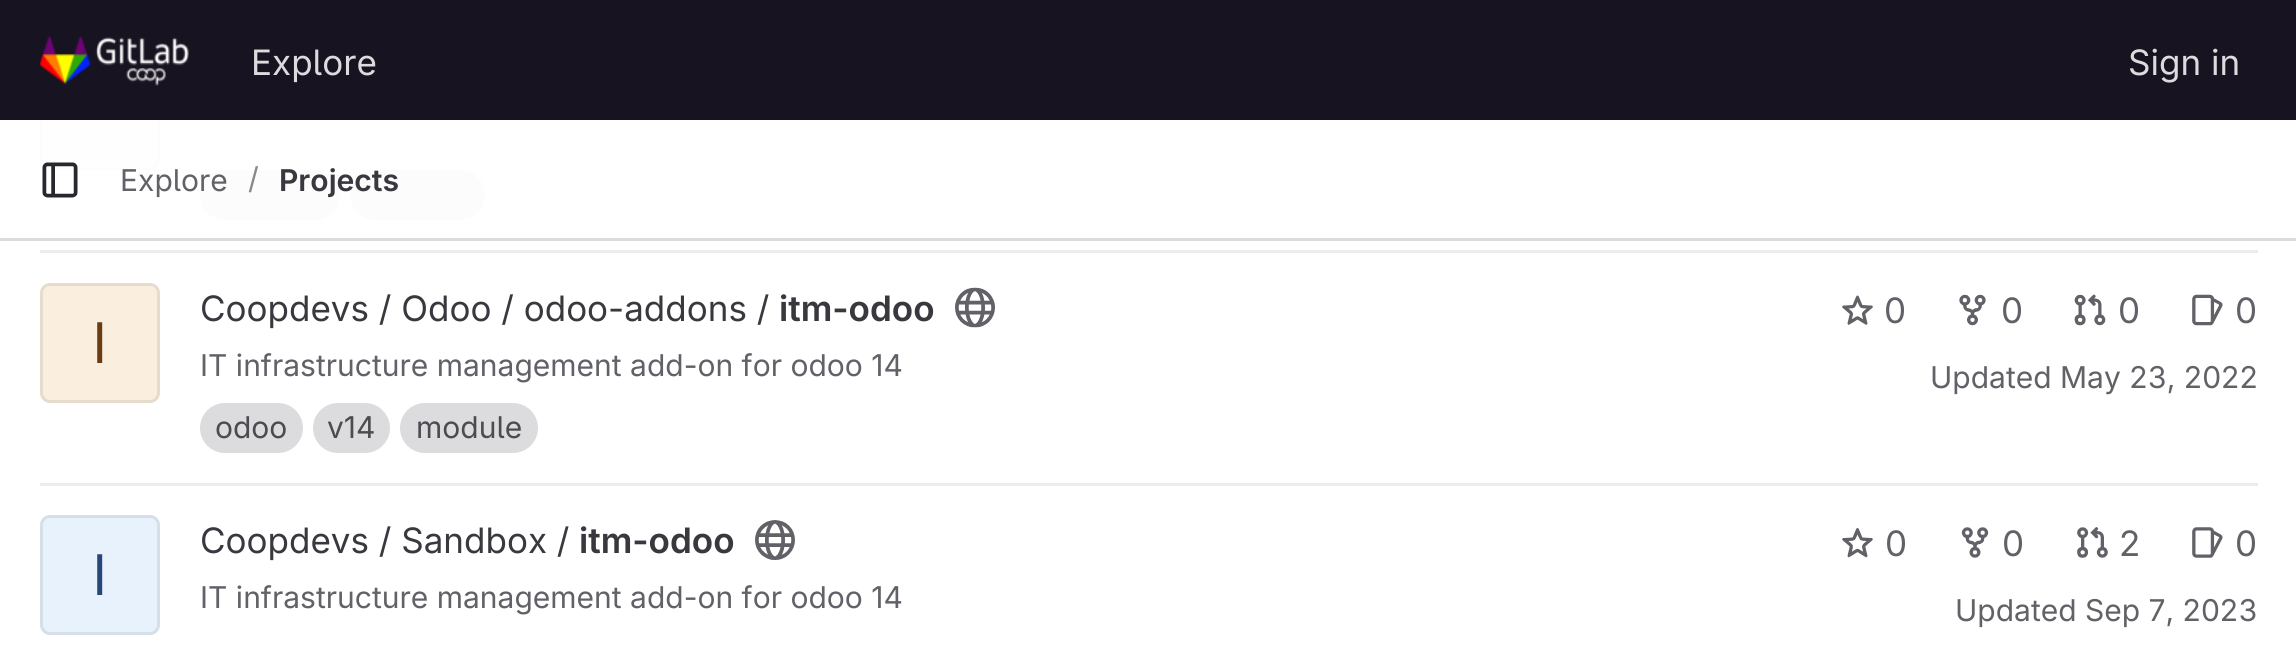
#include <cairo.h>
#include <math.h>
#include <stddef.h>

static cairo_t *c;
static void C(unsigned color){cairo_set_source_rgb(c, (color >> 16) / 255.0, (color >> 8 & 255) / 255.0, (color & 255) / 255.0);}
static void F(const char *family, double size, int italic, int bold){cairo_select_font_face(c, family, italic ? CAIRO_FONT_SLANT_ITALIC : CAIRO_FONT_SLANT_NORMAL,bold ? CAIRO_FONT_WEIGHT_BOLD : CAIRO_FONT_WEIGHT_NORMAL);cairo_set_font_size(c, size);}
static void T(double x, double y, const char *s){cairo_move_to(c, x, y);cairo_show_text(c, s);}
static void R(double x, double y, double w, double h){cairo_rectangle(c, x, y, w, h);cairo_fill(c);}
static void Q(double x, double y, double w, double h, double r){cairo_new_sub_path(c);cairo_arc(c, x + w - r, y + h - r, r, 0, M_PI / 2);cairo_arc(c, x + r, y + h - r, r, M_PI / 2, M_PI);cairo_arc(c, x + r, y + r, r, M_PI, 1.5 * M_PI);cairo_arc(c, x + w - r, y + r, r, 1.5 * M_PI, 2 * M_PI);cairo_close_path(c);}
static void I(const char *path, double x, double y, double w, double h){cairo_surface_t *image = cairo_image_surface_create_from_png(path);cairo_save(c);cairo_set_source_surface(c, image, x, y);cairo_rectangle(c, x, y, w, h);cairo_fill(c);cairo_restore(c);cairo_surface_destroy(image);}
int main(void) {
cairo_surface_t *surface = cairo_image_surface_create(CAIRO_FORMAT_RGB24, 2296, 665);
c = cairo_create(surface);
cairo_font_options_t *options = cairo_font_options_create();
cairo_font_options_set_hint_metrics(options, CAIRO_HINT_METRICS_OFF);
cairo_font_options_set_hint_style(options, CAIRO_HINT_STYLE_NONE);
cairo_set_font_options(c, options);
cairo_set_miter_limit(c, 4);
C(0xffffff);
cairo_paint(c);
C(0xf3effc);
Q(40,50,120,120,10);
cairo_fill(c);
Q(41.5,51.5,117,117,8.5);
cairo_set_source_rgba(c,0.02,0.02,0.024,0.08);
cairo_set_line_width(c,3);
cairo_stroke(c);
C(0x171321);
R(0,0,2296,120);
I("1.png",39,36,150,50);
F("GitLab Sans",35,0,0);
C(0xdcdcde);
T(251,75,"Explore");
T(2128,75,"Sign in");
Q(200,170,140,50,25);
cairo_fill(c);
Q(350,170,135,50,25);
cairo_fill(c);
cairo_set_source_rgba(c,1,1,1,0.92);
R(40,120,445,100);
C(0xdcdcde);
R(0,238,2296,3);
I("2.png",42,162,36,36);
F("GitLab Sans",30,0,0);
C(0x626168);
T(120,191,"Explore");
C(0x89888d);
T(248,189,"/");
F("GitLab Sans SemiBold",30,0,0);
C(0x3a383f);
T(279,191,"Projects");
C(0xececef);
R(40,250,2218,3);
R(40,483,2218,3);
C(0xfaefde);
Q(40,283,120,120,10);
cairo_fill(c);
Q(41.5,284.5,117,117,8.5);
cairo_set_source_rgba(c,0.02,0.02,0.024,0.08);
cairo_stroke(c);
F("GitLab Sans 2",56,0,0);
C(0x693c14);
T(93,363,"I");
F("GitLab Sans",35,0,0);
C(0x3a383f);
T(200,321,"Coopdevs / Odoo / odoo-addons /");
F("GitLab Sans SemiBold",35,0,0);
T(779,321,"itm-odoo");
I("3.png",955,287,40,41);
F("GitLab Sans",30,0,0);
C(0x626168);
T(200,376,"IT infrastructure management add-on for odoo 14");
C(0xdcdcde);
Q(200,403,103,50,25);
cairo_fill(c);
C(0x4c4b51);
T(215,438,"odoo");
C(0xdcdcde);
Q(313,403,77,50,25);
cairo_fill(c);
C(0x4c4b51);
T(327,438,"v14");
C(0xdcdcde);
Q(400,403,138,50,25);
cairo_fill(c);
C(0x4c4b51);
T(416,438,"module");
I("4.png",1842,295,31,30);
F("GitLab Sans",35,0,0);
C(0x626168);
T(1884,323,"0");
I("5.png",1959,294,27,32);
T(2001,323,"0");
I("6.png",2074,294,32,32);
T(2118,323,"0");
I("7.png",2192,294,31,32);
T(2235,323,"0");
F("GitLab Sans",30,0,0);
T(1930,388,"Updated May 23, 2022");
C(0xe7f2fc);
Q(40,515,120,120,10);
cairo_fill(c);
Q(41.5,516.5,117,117,8.5);
cairo_set_source_rgba(c,0.02,0.02,0.024,0.08);
cairo_stroke(c);
F("GitLab Sans 2",56,0,0);
C(0x284779);
T(93,595,"I");
F("GitLab Sans",35,0,0);
C(0x3a383f);
T(200,553,"Coopdevs / Sandbox /");
F("GitLab Sans SemiBold",35,0,0);
T(579,553,"itm-odoo");
I("8.png",755,520,40,40);
F("GitLab Sans",30,0,0);
C(0x626168);
T(200,608,"IT infrastructure management add-on for odoo 14");
I("9.png",1842,528,31,30);
F("GitLab Sans",35,0,0);
T(1885,556,"0");
I("10.png",1961,527,28,31);
T(2002,556,"0");
I("11.png",2077,527,31,31);
T(2119,556,"2");
I("12.png",2192,527,31,31);
T(2235,556,"0");
F("GitLab Sans",30,0,0);
T(1955,621,"Updated Sep 7, 2023");
cairo_surface_write_to_png(surface, "o.png");
cairo_font_options_destroy(options);
cairo_destroy(c);
cairo_surface_destroy(surface);
return 0;
}
